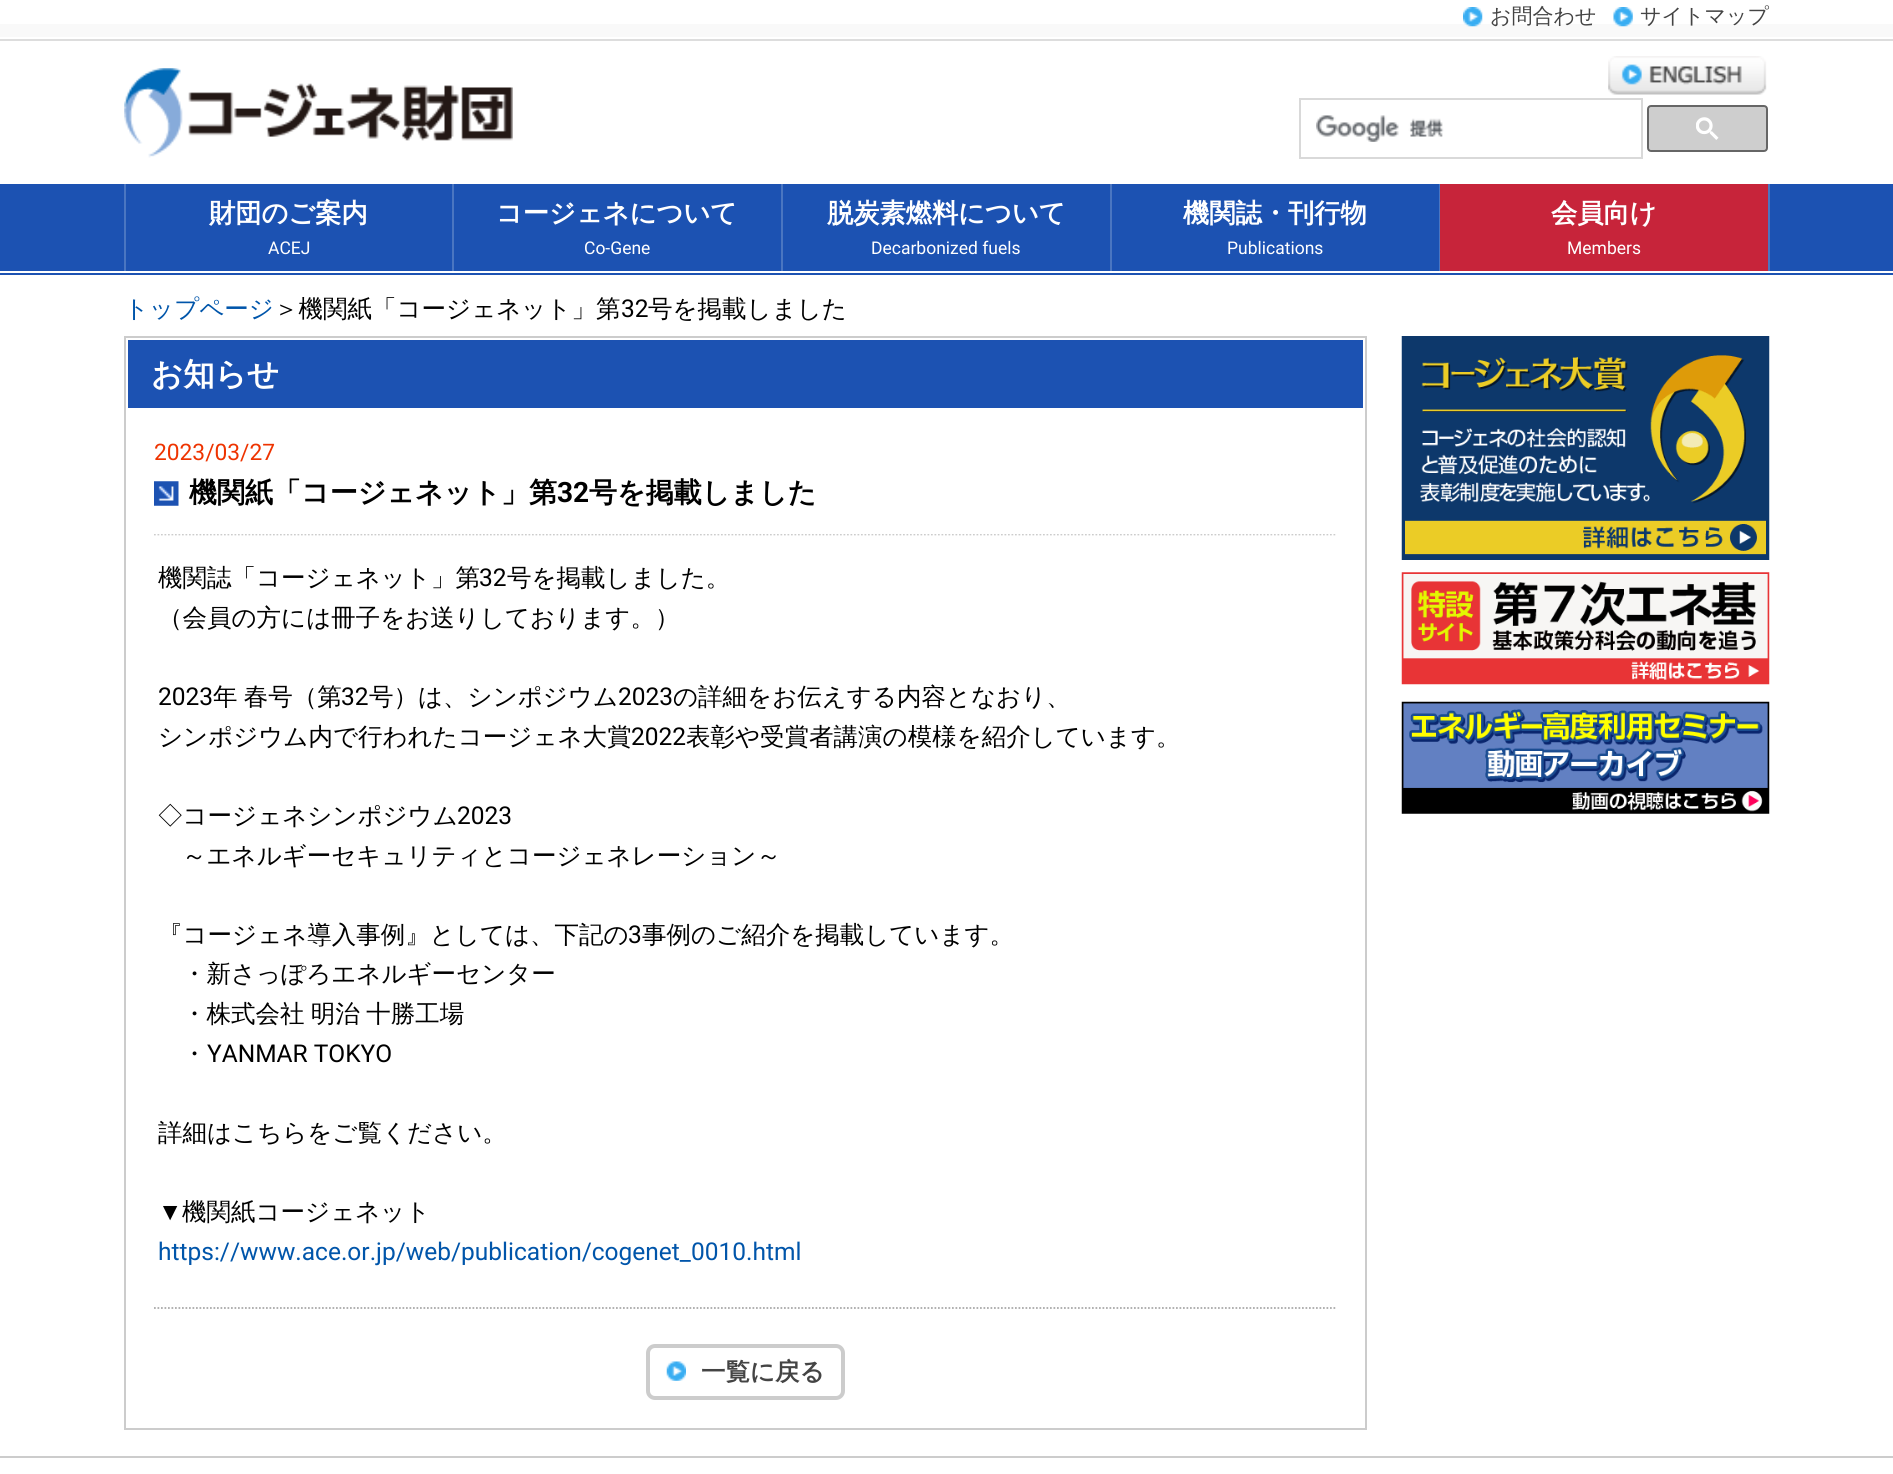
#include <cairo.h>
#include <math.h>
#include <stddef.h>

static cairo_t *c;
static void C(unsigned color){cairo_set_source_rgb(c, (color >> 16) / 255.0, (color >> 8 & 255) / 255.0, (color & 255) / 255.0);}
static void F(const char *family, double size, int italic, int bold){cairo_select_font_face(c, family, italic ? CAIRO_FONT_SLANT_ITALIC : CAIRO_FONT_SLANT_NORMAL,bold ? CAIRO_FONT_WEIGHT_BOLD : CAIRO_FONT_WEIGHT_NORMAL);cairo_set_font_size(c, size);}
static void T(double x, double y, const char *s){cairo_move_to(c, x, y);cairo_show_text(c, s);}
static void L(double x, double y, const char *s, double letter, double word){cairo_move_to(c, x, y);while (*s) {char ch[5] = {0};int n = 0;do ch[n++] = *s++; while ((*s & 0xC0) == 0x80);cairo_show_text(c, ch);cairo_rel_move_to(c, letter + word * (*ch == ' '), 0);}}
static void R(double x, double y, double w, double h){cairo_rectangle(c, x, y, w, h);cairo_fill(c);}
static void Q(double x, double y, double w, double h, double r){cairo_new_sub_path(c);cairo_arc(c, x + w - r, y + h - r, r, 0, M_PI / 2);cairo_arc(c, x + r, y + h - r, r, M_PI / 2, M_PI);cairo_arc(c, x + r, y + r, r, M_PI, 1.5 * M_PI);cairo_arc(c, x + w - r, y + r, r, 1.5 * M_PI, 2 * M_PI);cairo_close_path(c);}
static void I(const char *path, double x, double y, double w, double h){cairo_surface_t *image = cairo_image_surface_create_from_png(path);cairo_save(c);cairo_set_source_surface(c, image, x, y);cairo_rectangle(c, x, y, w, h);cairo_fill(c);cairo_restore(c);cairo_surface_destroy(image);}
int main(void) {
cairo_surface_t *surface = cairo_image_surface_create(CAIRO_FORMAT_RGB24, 1893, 1474);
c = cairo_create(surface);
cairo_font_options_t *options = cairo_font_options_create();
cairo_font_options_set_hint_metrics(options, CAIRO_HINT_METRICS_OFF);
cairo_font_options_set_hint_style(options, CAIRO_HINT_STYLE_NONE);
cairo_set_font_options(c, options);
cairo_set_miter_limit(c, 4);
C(0xffffff);
cairo_paint(c);
C(0xf9f9f9);
R(0,24,1893,13);
C(0xdddddd);
R(0,39,1893,2);
I("1.png",1463,7,20,20);
F("WenQuanYi Zen Hei Medium",21,0,0);
C(0x444444);
T(1490,23,"お問合わせ");
I("2.png",1613,7,20,20);
T(1640,23,"サイトマップ");
I("3.png",124,68,389,90);
I("4.png",1608,56,159,39);
cairo_rectangle(c,1300,99,342,59);
C(0xd9d9d9);
cairo_stroke(c);
I("5.png",1316,115,128,27);
C(0xcecece);
Q(1648,106,119,45,3);
cairo_fill_preserve(c);
C(0x666666);
cairo_stroke(c);
I("6.png",1696,117,23,23);
C(0x1c52b2);
R(0,273,1893,2);
R(0,184,1893,87);
C(0x4a76c1);
R(124,184,2,87);
R(452,184,2,87);
F("WenQuanYi Zen Hei",26.25,0,1);
C(0xffffff);
T(209,222,"財団のご案内");
F("Roboto",17.5,0,0);
T(268,254,"ACEJ");
C(0x4a76c1);
R(781,184,2,87);
F("WenQuanYi Zen Hei",26.25,0,1);
C(0xffffff);
T(496,222,"コージェネについて");
F("Roboto",17.5,0,0);
T(584,254,"Co-Gene");
C(0x4a76c1);
R(1110,184,2,87);
F("WenQuanYi Zen Hei",26.25,0,1);
C(0xffffff);
T(827,222,"脱炭素燃料について");
F("Roboto",17.5,0,0);
T(871,254,"Decarbonized fuels");
C(0x4a76c1);
R(1439,184,1,87);
F("WenQuanYi Zen Hei",26.25,0,1);
C(0xffffff);
T(1183,222,"機関誌・刊行物");
F("Roboto",17.5,0,0);
T(1227,254,"Publications");
C(0xc7243a);
R(1440,184,328,87);
C(0x4a76c1);
R(1768,184,2,87);
F("WenQuanYi Zen Hei",26.25,0,1);
C(0xffffff);
T(1551,222,"会員向け");
F("Roboto",17.5,0,0);
T(1567,254,"Members");
F("WenQuanYi Zen Hei Medium",24.5,0,0);
C(0x0055aa);
T(124,317,"トップページ");
C(0x000000);
T(274,317,"＞機関紙「コージェネット」第");
F("Roboto",24.5,0,0);
T(621,317,"32");
F("WenQuanYi Zen Hei Medium",24.5,0,0);
T(648,317,"号を掲載しました");
cairo_rectangle(c,125,337,1241,1092);
C(0xcccccc);
cairo_stroke(c);
C(0x1c52b2);
R(128,340,1235,68);
F("WenQuanYi Zen Hei",31.5,0,1);
C(0xffffff);
T(151,385,"お知らせ");
cairo_new_path(c);
cairo_move_to(c,154,534.5);
cairo_line_to(c,1337,534.5);
C(0xcccccc);
cairo_set_line_width(c,1.8);
cairo_set_dash(c,(double[]){1.75,1.75},2,0);
cairo_stroke(c);
F("Roboto",22.75,0,0);
C(0xee3300);
T(154,460,"2023/03/27");
C(0xffffff);
R(154,533,1182,1);
I("7.png",154,481,25,25);
F("WenQuanYi Zen Hei",28,0,1);
C(0x000000);
T(189,502,"機関紙「コージェネット」第");
F("Roboto",28,0,1);
T(557,502,"32");
F("WenQuanYi Zen Hei",28,0,1);
T(589,502,"号を掲載しました");
F("WenQuanYi Zen Hei Medium",24.5,0,0);
T(158,586,"機関誌「コージェネット」第");
F("Roboto",24.5,0,0);
T(479,586,"32");
F("WenQuanYi Zen Hei Medium",24.5,0,0);
T(507,586,"号を掲載しました。");
T(158,626,"（会員の方には冊子をお送りしております。）");
F("Roboto",24.5,0,0);
T(158,705,"2023");
F("WenQuanYi Zen Hei Medium",24.5,0,0);
L(213,705,"年 春号（第",0,-1);
F("Roboto",24.5,0,0);
T(341,705,"32");
F("WenQuanYi Zen Hei Medium",24.5,0,0);
T(369,705,"号）は、シンポジウム");
F("Roboto",24.5,0,0);
T(618,705,"2023");
F("WenQuanYi Zen Hei Medium",24.5,0,0);
T(673,705,"の詳細をお伝えする内容となおり、");
T(158,745,"シンポジウム内で行われたコージェネ大賞");
F("Roboto",24.5,0,0);
T(631,745,"2022");
F("WenQuanYi Zen Hei Medium",24.5,0,0);
T(686,745,"表彰や受賞者講演の模様を紹介しています。");
T(158,824,"◇コージェネシンポジウム");
F("Roboto",24.5,0,0);
T(457,824,"2023");
F("WenQuanYi Zen Hei Medium",24.5,0,0);
T(182,864,"～エネルギーセキュリティとコージェネレーション～");
T(158,943,"『コージェネ導入事例』としては、下記の");
F("Roboto",24.5,0,0);
T(628,943,"3");
F("WenQuanYi Zen Hei Medium",24.5,0,0);
T(642,943,"事例のご紹介を掲載しています。");
T(182,982,"・新さっぽろエネルギーセンター");
L(182,1022,"・株式会社 明治 十勝工場",0,-1);
T(182,1062,"・");
F("Roboto",24.5,0,0);
T(207,1062,"YANMAR TOKYO");
F("WenQuanYi Zen Hei Medium",24.5,0,0);
T(158,1141,"詳細はこちらをご覧ください。");
F("Liberation Sans",24.5,0,0);
T(158,1220,"▼");
F("WenQuanYi Zen Hei Medium",24.5,0,0);
T(182,1220,"機関紙コージェネット");
F("Roboto",24.5,0,0);
C(0x0055aa);
T(158,1260,"https://www.ace.or.jp/web/publication/cogenet_0010.html");
cairo_new_path(c);
cairo_move_to(c,154,1308);
cairo_line_to(c,1337,1308);
C(0xaaaaaa);
cairo_stroke(c);
I("8.png",666,1361,20,20);
Q(648,1346,195,52,7);
C(0xcccccc);
cairo_set_line_width(c,4);
cairo_set_dash(c,NULL,0,0);
cairo_stroke(c);
F("WenQuanYi Zen Hei",24.5,0,1);
C(0x444444);
T(701,1380,"一覧に戻る");
I("9.png",1401,336,369,224);
I("10.png",1401,572,369,113);
I("11.png",1401,701,369,113);
C(0xcccccc);
R(0,1456,1893,2);
cairo_surface_write_to_png(surface, "o.png");
cairo_font_options_destroy(options);
cairo_destroy(c);
cairo_surface_destroy(surface);
return 0;
}
